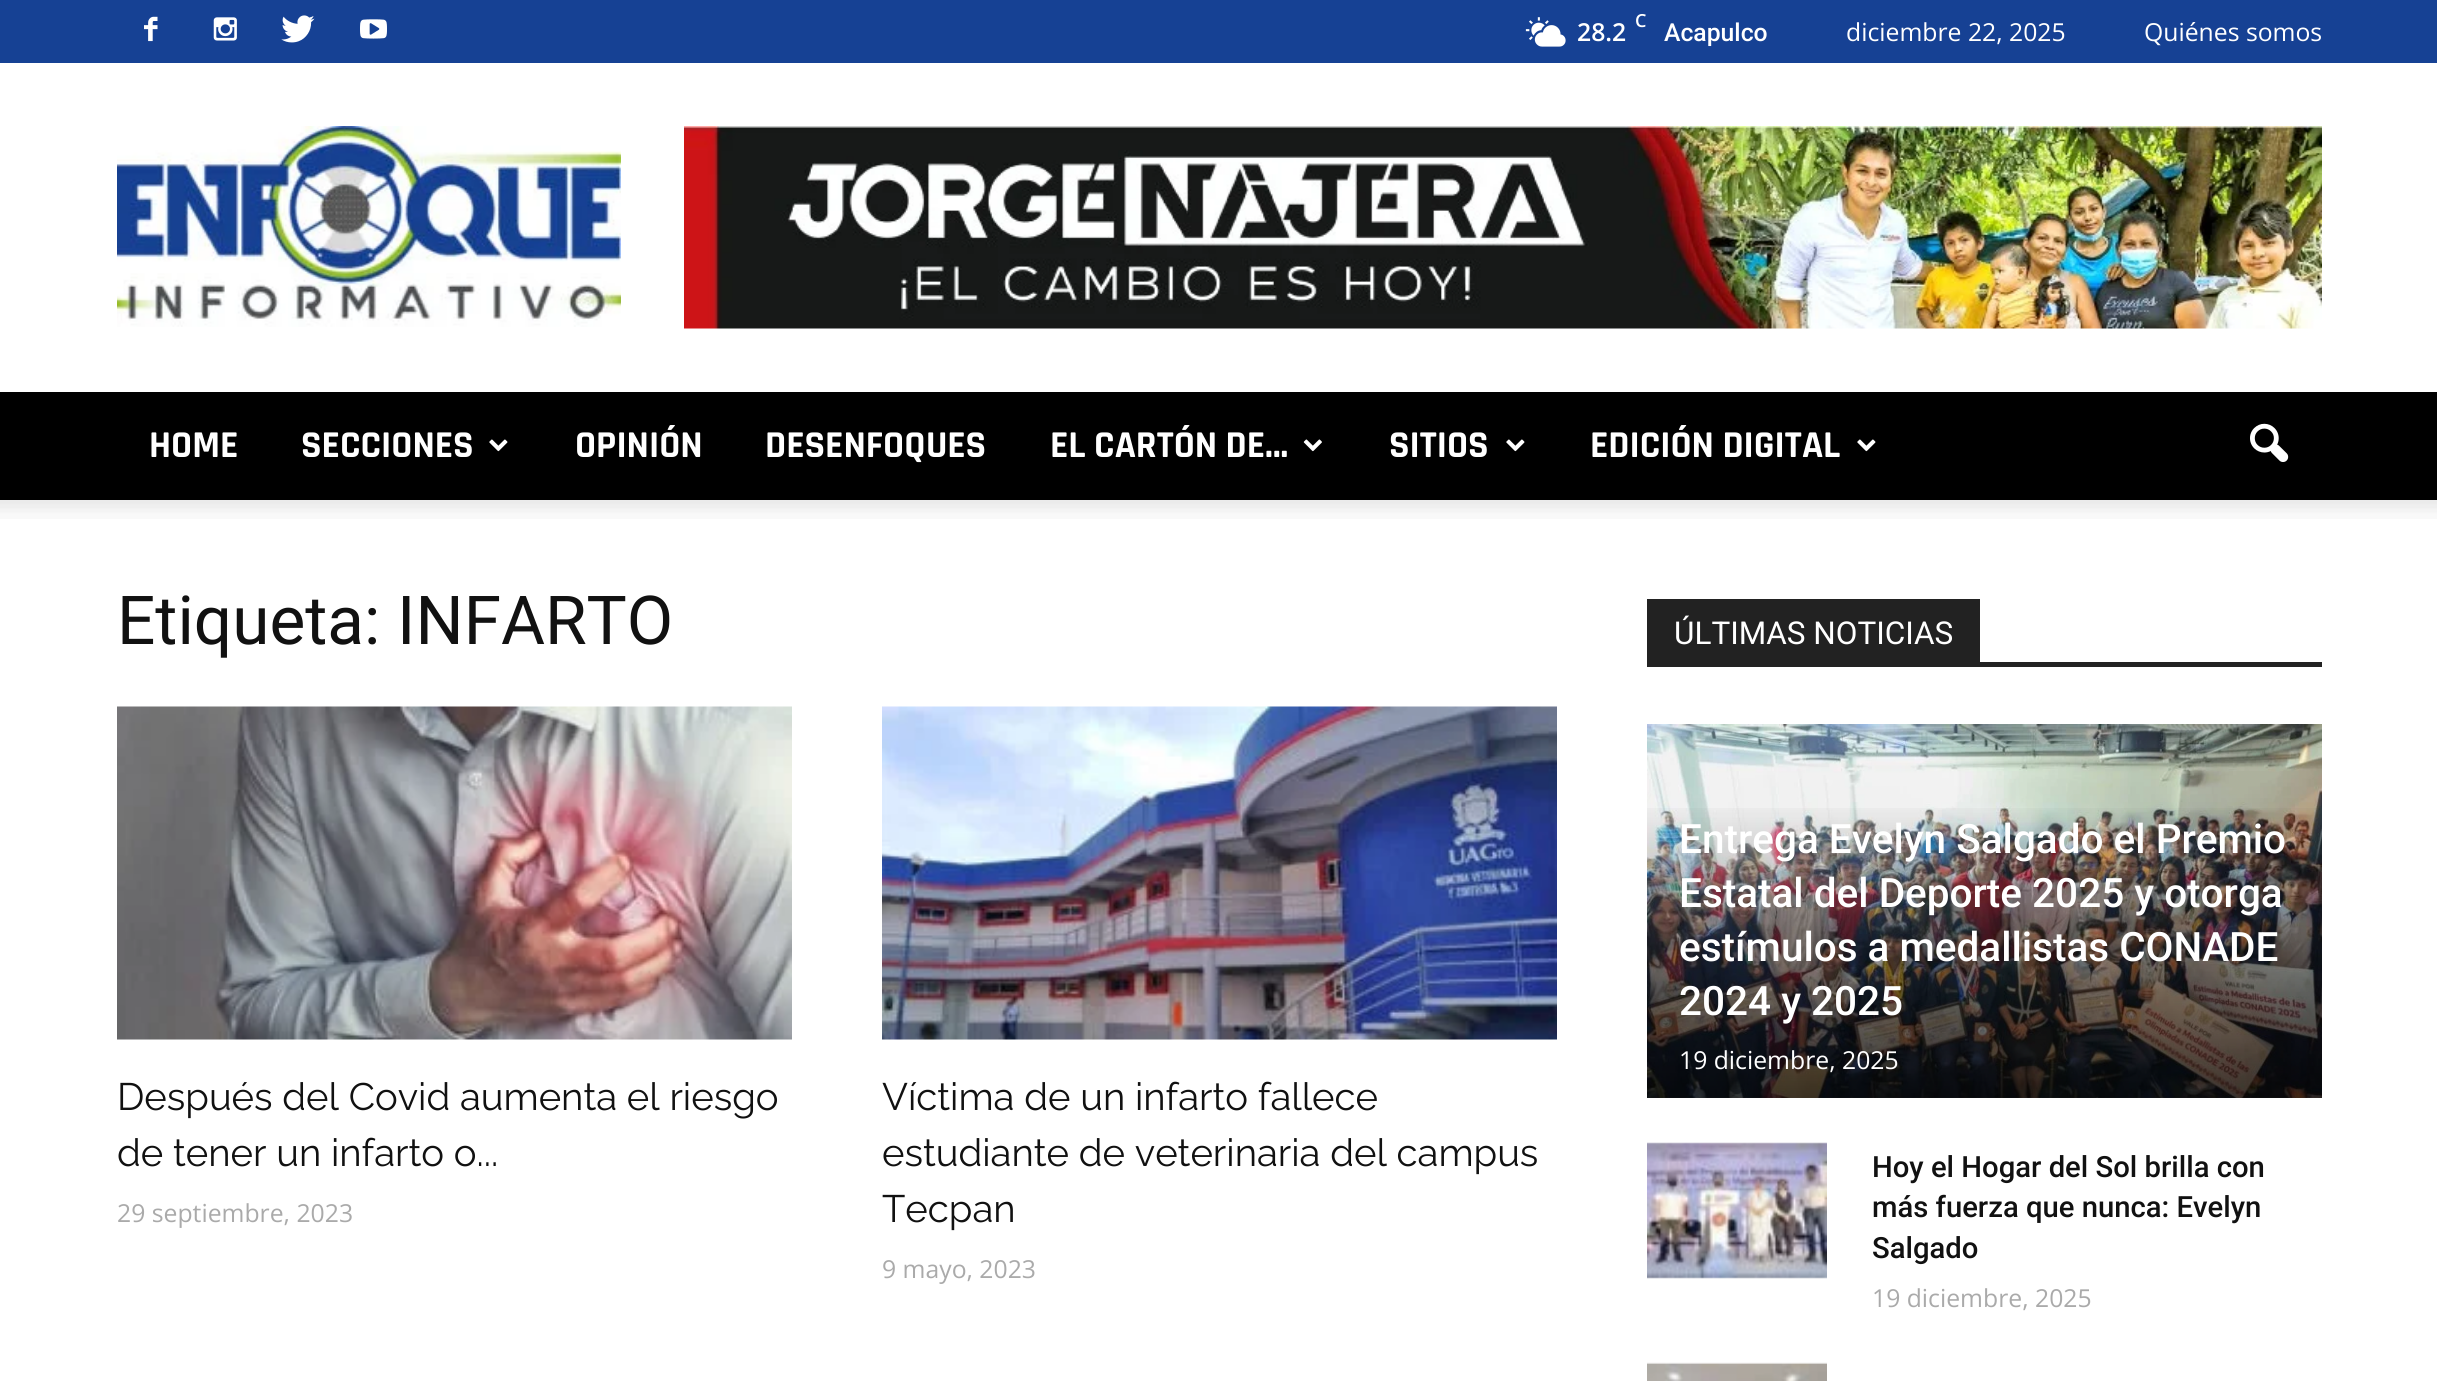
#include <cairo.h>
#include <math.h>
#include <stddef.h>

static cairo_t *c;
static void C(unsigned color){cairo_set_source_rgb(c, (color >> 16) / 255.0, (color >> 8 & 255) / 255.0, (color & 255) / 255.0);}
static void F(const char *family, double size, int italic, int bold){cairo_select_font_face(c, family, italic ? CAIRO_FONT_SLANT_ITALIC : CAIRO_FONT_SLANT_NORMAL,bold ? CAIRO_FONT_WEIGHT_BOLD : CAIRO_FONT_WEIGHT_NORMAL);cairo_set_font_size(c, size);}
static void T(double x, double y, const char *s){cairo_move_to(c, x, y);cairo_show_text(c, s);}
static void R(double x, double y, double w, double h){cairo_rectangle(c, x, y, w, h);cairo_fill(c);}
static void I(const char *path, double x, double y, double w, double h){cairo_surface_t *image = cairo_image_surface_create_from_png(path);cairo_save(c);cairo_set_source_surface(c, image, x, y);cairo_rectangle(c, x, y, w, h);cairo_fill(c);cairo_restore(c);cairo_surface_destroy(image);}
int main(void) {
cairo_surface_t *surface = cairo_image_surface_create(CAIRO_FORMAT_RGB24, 2437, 1381);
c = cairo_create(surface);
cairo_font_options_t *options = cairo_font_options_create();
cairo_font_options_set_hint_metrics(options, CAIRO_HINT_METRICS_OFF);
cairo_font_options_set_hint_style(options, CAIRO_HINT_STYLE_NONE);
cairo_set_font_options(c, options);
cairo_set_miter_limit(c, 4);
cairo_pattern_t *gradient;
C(0xffffff);
cairo_paint(c);
C(0x164194);
R(0,0,2437,63);
I("1.png",144,16,14,26);
I("2.png",213,17,24,24);
I("3.png",281,15,34,28);
I("4.png",360,19,27,20);
I("5.png",1525,17,41,30);
F("Open Sans SemiBold",18,0,0);
C(0xffffff);
T(1635,27,"C");
F("Open Sans SemiBold",24.75,0,0);
T(1577,41,"28.2");
F("Roboto Medium",24.75,0,0);
T(1664,41,"Acapulco");
F("Open Sans",24.75,0,0);
T(1846,41,"diciembre 22, 2025");
T(2144,41,"Quiénes somos");
I("6.png",117,126,504,201);
I("7.png",684,126,1638,203);
C(0x000000);
R(0,392,2437,108);
F("Rajdhani",38.25,0,1);
C(0xffffff);
T(149,457,"HOME");
T(301,457,"SECCIONES");
I("8.png",489,439,19,13);
T(575,457,"OPINIÓN");
T(765,457,"DESENFOQUES");
T(1050,457,"EL CARTÓN DE…");
I("9.png",1303,439,19,13);
T(1389,457,"SITIOS");
I("8.png",1506,439,19,13);
T(1590,457,"EDICIÓN DIGITAL");
I("8.png",1857,439,19,13);
I("10.png",2250,423,39,39);
I("11.png",0,500,2437,19);
F("Roboto",67.5,0,0);
C(0x111111);
T(117,644,"Etiqueta: INFARTO");
I("12.png",117,706,675,334);
F("Raleway",38.25,0,0);
T(117,1110,"Después del Covid aumenta el riesgo");
T(117,1166,"de tener un infarto o...");
F("Open Sans",24.75,0,0);
C(0xaaaaaa);
T(117,1222,"29 septiembre, 2023");
I("13.png",882,706,675,334);
F("Raleway",38.25,0,0);
C(0x111111);
T(882,1110,"Víctima de un infarto fallece");
T(882,1166,"estudiante de veterinaria del campus");
T(882,1222,"Tecpan");
F("Open Sans",24.75,0,0);
C(0xaaaaaa);
T(882,1278,"9 mayo, 2023");
C(0x222222);
R(1647,662,675,5);
R(1647,599,333,63);
F("Roboto",31.5,0,0);
C(0xffffff);
T(1674,644,"ÚLTIMAS NOTICIAS");
I("14.png",1647,724,675,374);
gradient = cairo_pattern_create_linear(1985,799,1985,1098);
cairo_pattern_add_color_stop_rgba(gradient,0,0,0,0,0);
cairo_pattern_add_color_stop_rgba(gradient,1,0,0,0,.7);
cairo_set_source(c,gradient);
cairo_pattern_destroy(gradient);
R(1647,808,675,290);
F("Roboto Medium",40.5,0,0);
C(0xffffff);
T(1679,853,"Entrega Evelyn Salgado el Premio");
T(1679,907,"Estatal del Deporte 2025 y otorga");
T(1679,961,"estímulos a medallistas CONADE");
T(1679,1015,"2024 y 2025");
F("Open Sans",24.75,0,0);
T(1679,1069,"19 diciembre, 2025");
I("15.png",1647,1142,180,137);
F("Roboto Medium",29.25,0,0);
C(0x111111);
T(1872,1177,"Hoy el Hogar del Sol brilla con");
T(1872,1217,"más fuerza que nunca: Evelyn");
T(1872,1258,"Salgado");
F("Open Sans",24.75,0,0);
C(0xaaaaaa);
T(1872,1307,"19 diciembre, 2025");
I("16.png",1647,1362,180,19);
cairo_surface_write_to_png(surface, "o.png");
cairo_font_options_destroy(options);
cairo_destroy(c);
cairo_surface_destroy(surface);
return 0;
}
